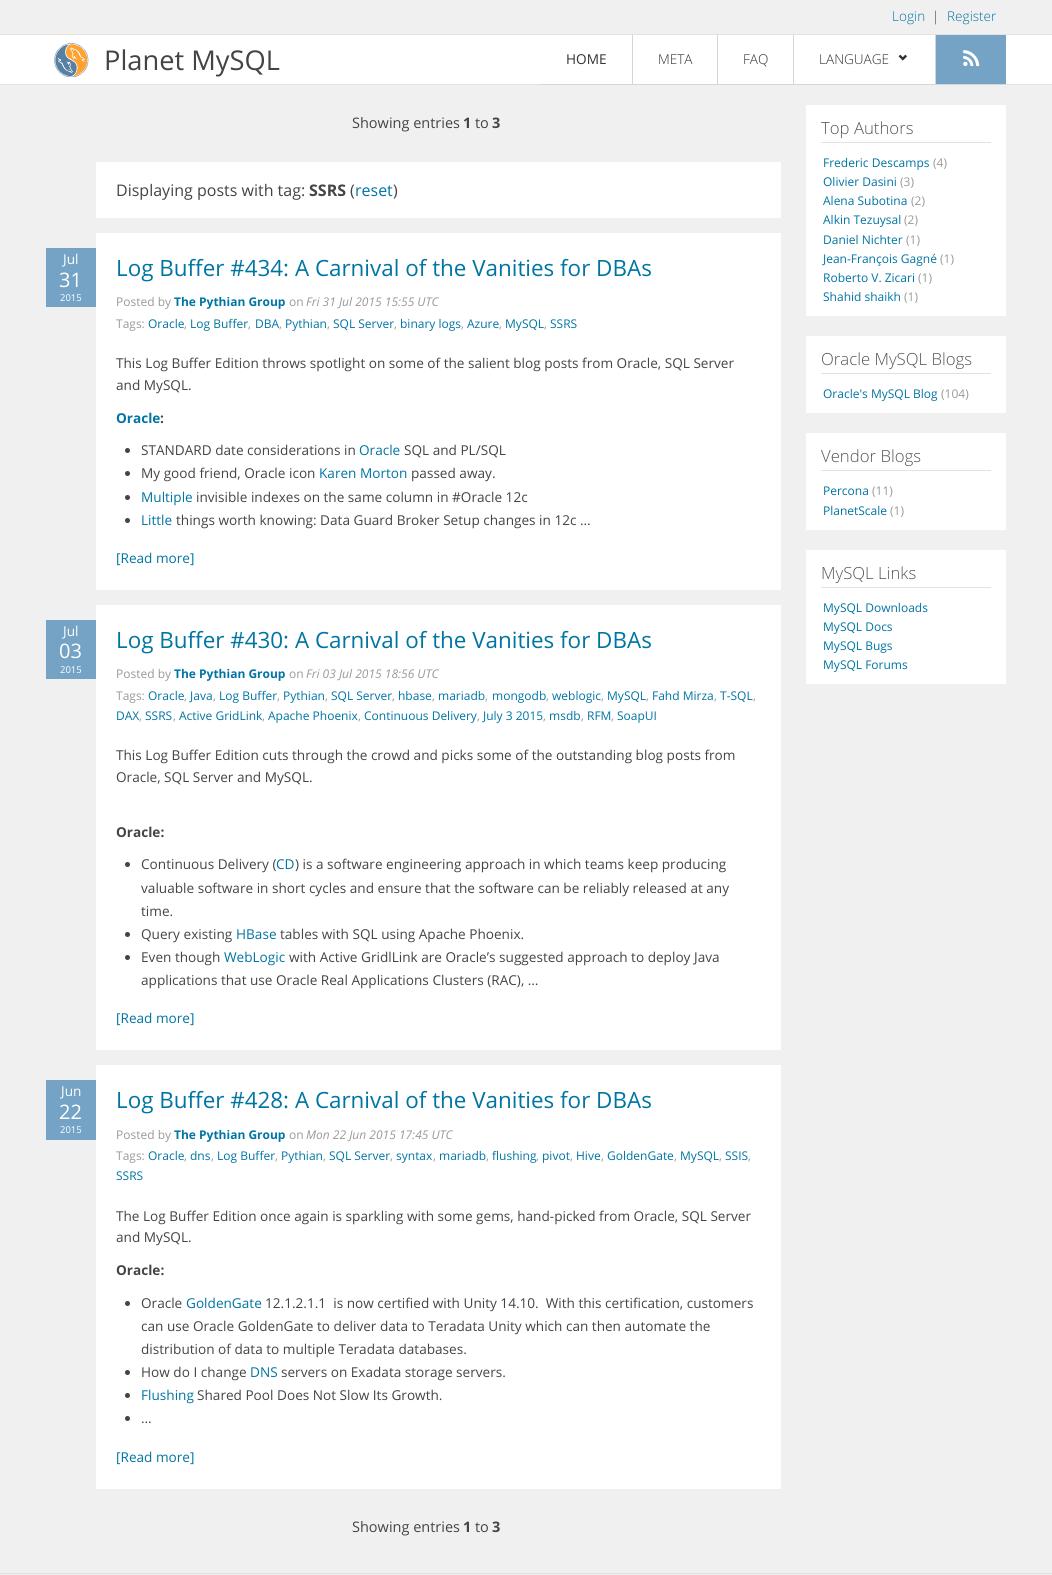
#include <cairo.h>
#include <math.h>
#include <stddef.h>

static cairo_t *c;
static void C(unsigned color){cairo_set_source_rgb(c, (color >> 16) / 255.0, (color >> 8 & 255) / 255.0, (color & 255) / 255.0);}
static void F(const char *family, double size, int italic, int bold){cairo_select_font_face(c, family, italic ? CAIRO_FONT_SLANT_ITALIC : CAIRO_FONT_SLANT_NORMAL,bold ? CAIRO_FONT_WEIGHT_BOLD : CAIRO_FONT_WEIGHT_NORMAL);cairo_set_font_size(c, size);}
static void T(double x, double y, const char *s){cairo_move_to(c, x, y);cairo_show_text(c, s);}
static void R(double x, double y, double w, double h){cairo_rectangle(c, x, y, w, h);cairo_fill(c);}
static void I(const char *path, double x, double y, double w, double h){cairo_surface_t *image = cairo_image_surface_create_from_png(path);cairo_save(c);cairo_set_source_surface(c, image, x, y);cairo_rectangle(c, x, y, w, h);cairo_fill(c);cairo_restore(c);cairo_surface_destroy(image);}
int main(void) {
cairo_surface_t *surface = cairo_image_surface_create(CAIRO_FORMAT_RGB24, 1052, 1575);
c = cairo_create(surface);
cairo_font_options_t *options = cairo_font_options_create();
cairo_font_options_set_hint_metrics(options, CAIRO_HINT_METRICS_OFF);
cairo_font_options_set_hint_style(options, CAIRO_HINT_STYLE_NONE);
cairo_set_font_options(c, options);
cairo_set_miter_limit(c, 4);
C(0xf0f0f0);
cairo_paint(c);
C(0xe2e2e2);
R(0,34,1052,1);
F("Open Sans Light",13.6,0,0);
C(0x0074a3);
T(892,21,"Login");
C(0x444444);
T(932,21,"|");
C(0x0074a3);
T(947,21,"Register");
C(0xffffff);
R(0,35,1052,49);
C(0xe2e2e2);
R(0,84,1052,1);
I("1.png",54,43,35,34);
F("Open Sans",27.25,0,0);
C(0x444444);
T(104,70,"Planet MySQL");
C(0xd2d6d5);
R(541,84,465,1);
F("Open Sans",13.6,0,0);
C(0x313131);
T(566,64,"HOME");
C(0xd2d6d5);
R(632,35,1,50);
F("Open Sans Light",13.6,0,0);
C(0x313131);
T(658,64,"META");
C(0xd2d6d5);
R(717,35,1,50);
C(0x313131);
T(743,64,"FAQ");
C(0xd2d6d5);
R(793,35,1,50);
C(0x313131);
T(819,64,"LANGUAGE");
I("2.png",898,54,9,7);
C(0xd2d6d5);
R(935,35,1,50);
C(0x74a3c6);
R(936,35,70,49);
I("3.png",963,50,17,17);
F("Open Sans",14.5,0,0);
C(0x444444);
T(352,128,"Showing entries");
F("Open Sans",14.5,0,1);
T(463,128,"1");
F("Open Sans",14.5,0,0);
T(475,128,"to");
F("Open Sans",14.5,0,1);
T(492,128,"3");
C(0xffffff);
R(96,162,685,56);
F("Open Sans",16,0,0);
C(0x444444);
T(116,196,"Displaying posts with tag:");
F("Open Sans",16,0,1);
T(309,196,"SSRS");
F("Open Sans",16,0,0);
T(350,196,"(");
C(0x0074a3);
T(355,196,"reset");
C(0x444444);
T(393,196,")");
C(0xffffff);
R(96,233,685,357);
C(0x74a3c6);
R(46,248,50,59);
F("Open Sans",13.6,0,0);
C(0xffffff);
T(63,264,"Jul");
F("Open Sans",20,0,0);
T(59,287,"31");
F("Open Sans",9.5,0,0);
T(60,301,"2015");
F("Open Sans",22.4,0,0);
C(0x0074a3);
T(116,276,"Log Buffer #434: A Carnival of the Vanities for DBAs");
F("Open Sans",12,0,0);
C(0x999999);
T(116,306,"Posted by");
F("Open Sans",12,0,1);
C(0x0074a3);
T(174,306,"The Pythian Group");
F("Open Sans",12,0,0);
C(0x999999);
T(289,306,"on");
F("Open Sans",12,1,0);
T(306,306,"Fri 31 Jul 2015 15:55 UTC");
F("Open Sans",12,0,0);
T(116,328,"Tags:");
C(0x0074a3);
T(148,328,"Oracle");
C(0x999999);
T(184,328,",");
C(0x0074a3);
T(190,328,"Log Buffer");
C(0x999999);
T(248,328,",");
C(0x0074a3);
T(255,328,"DBA");
C(0x999999);
T(279,328,",");
C(0x0074a3);
T(285,328,"Pythian");
C(0x999999);
T(327,328,",");
C(0x0074a3);
T(333,328,"SQL Server");
C(0x999999);
T(394,328,",");
C(0x0074a3);
T(400,328,"binary logs");
C(0x999999);
T(461,328,",");
C(0x0074a3);
T(467,328,"Azure");
C(0x999999);
T(499,328,",");
C(0x0074a3);
T(505,328,"MySQL");
C(0x999999);
T(544,328,",");
C(0x0074a3);
T(550,328,"SSRS");
F("Open Sans",13.6,0,0);
C(0x444444);
T(116,368,"This Log Buffer Edition throws spotlight on some of the salient blog posts from Oracle, SQL Server");
T(116,390,"and MySQL.");
F("Open Sans",13.6,0,1);
C(0x0074a3);
T(116,423,"Oracle");
C(0x444444);
T(160,423,":");
cairo_new_path(c);
cairo_arc(c,127.5,450.5,2.5,0,2 * M_PI);
cairo_fill(c);
F("Open Sans",13.6,0,0);
T(141,455,"STANDARD date considerations in");
C(0x0074a3);
T(359,455,"Oracle");
C(0x444444);
T(404,455,"SQL and PL/SQL");
cairo_new_path(c);
cairo_arc(c,127.5,473.5,2.5,0,2 * M_PI);
cairo_fill(c);
T(141,478,"My good friend, Oracle icon");
C(0x0074a3);
T(319,478,"Karen Morton");
C(0x444444);
T(411,478,"passed away.");
cairo_new_path(c);
cairo_arc(c,127.5,497.5,2.5,0,2 * M_PI);
cairo_fill(c);
C(0x0074a3);
T(141,502,"Multiple");
C(0x444444);
T(196,502,"invisible indexes on the same column in #Oracle 12c");
cairo_new_path(c);
cairo_arc(c,127.5,520.5,2.5,0,2 * M_PI);
cairo_fill(c);
C(0x0074a3);
T(141,525,"Little");
C(0x444444);
T(176,525,"things worth knowing: Data Guard Broker Setup changes in 12c …");
C(0x0074a3);
T(116,563,"[Read more]");
C(0xffffff);
R(96,605,685,445);
C(0x74a3c6);
R(46,620,50,59);
C(0xffffff);
T(63,636,"Jul");
F("Open Sans",20,0,0);
T(59,658,"03");
F("Open Sans",9.5,0,0);
T(60,673,"2015");
F("Open Sans",22.4,0,0);
C(0x0074a3);
T(116,648,"Log Buffer #430: A Carnival of the Vanities for DBAs");
F("Open Sans",12,0,0);
C(0x999999);
T(116,678,"Posted by");
F("Open Sans",12,0,1);
C(0x0074a3);
T(174,678,"The Pythian Group");
F("Open Sans",12,0,0);
C(0x999999);
T(289,678,"on");
F("Open Sans",12,1,0);
T(306,678,"Fri 03 Jul 2015 18:56 UTC");
F("Open Sans",12,0,0);
T(116,700,"Tags:");
C(0x0074a3);
T(148,700,"Oracle");
C(0x999999);
T(184,700,",");
C(0x0074a3);
T(190,700,"Java");
C(0x999999);
T(213,700,",");
C(0x0074a3);
T(219,700,"Log Buffer");
C(0x999999);
T(277,700,",");
C(0x0074a3);
T(283,700,"Pythian");
C(0x999999);
T(325,700,",");
C(0x0074a3);
T(331,700,"SQL Server");
C(0x999999);
T(392,700,",");
C(0x0074a3);
T(398,700,"hbase");
C(0x999999);
T(432,700,",");
C(0x0074a3);
T(438,700,"mariadb");
C(0x999999);
T(485,700,",");
C(0x0074a3);
T(492,700,"mongodb");
C(0x999999);
T(546,700,",");
C(0x0074a3);
T(552,700,"weblogic");
C(0x999999);
T(601,700,",");
C(0x0074a3);
T(607,700,"MySQL");
C(0x999999);
T(646,700,",");
C(0x0074a3);
T(652,700,"Fahd Mirza");
C(0x999999);
T(714,700,",");
C(0x0074a3);
T(720,700,"T-SQL");
C(0x999999);
T(753,700,",");
C(0x0074a3);
T(116,720,"DAX");
C(0x999999);
T(139,720,",");
C(0x0074a3);
T(145,720,"SSRS");
C(0x999999);
T(173,720,",");
C(0x0074a3);
T(179,720,"Active GridLink");
C(0x999999);
T(262,720,",");
C(0x0074a3);
T(268,720,"Apache Phoenix");
C(0x999999);
T(358,720,",");
C(0x0074a3);
T(364,720,"Continuous Delivery");
C(0x999999);
T(477,720,",");
C(0x0074a3);
T(483,720,"July 3 2015");
C(0x999999);
T(543,720,",");
C(0x0074a3);
T(549,720,"msdb");
C(0x999999);
T(581,720,",");
C(0x0074a3);
T(587,720,"RFM");
C(0x999999);
T(611,720,",");
C(0x0074a3);
T(617,720,"SoapUI");
F("Open Sans",13.6,0,0);
C(0x444444);
T(116,760,"This Log Buffer Edition cuts through the crowd and picks some of the outstanding blog posts from");
T(116,782,"Oracle, SQL Server and MySQL.");
F("Open Sans",13.6,0,1);
T(116,837,"Oracle:");
cairo_new_path(c);
cairo_arc(c,127.5,864.5,2.5,0,2 * M_PI);
cairo_fill(c);
F("Open Sans",13.6,0,0);
T(141,869,"Continuous Delivery (");
C(0x0074a3);
T(276,869,"CD");
C(0x444444);
T(295,869,") is a software engineering approach in which teams keep producing");
T(141,893,"valuable software in short cycles and ensure that the software can be reliably released at any");
T(141,916,"time.");
cairo_new_path(c);
cairo_arc(c,127.5,934.5,2.5,0,2 * M_PI);
cairo_fill(c);
T(141,939,"Query existing");
C(0x0074a3);
T(236,939,"HBase");
C(0x444444);
T(280,939,"tables with SQL using Apache Phoenix.");
cairo_new_path(c);
cairo_arc(c,127.5,957.5,2.5,0,2 * M_PI);
cairo_fill(c);
T(141,962,"Even though");
C(0x0074a3);
T(224,962,"WebLogic");
C(0x444444);
T(289,962,"with Active GridlLink are Oracle’s suggested approach to deploy Java");
T(141,985,"applications that use Oracle Real Applications Clusters (RAC), …");
C(0x0074a3);
T(116,1023,"[Read more]");
C(0xffffff);
R(96,1065,685,424);
C(0x74a3c6);
R(46,1080,50,60);
C(0xffffff);
T(61,1096,"Jun");
F("Open Sans",20,0,0);
T(59,1119,"22");
F("Open Sans",9.5,0,0);
T(60,1133,"2015");
F("Open Sans",22.4,0,0);
C(0x0074a3);
T(116,1108,"Log Buffer #428: A Carnival of the Vanities for DBAs");
F("Open Sans",12,0,0);
C(0x999999);
T(116,1139,"Posted by");
F("Open Sans",12,0,1);
C(0x0074a3);
T(174,1139,"The Pythian Group");
F("Open Sans",12,0,0);
C(0x999999);
T(289,1139,"on");
F("Open Sans",12,1,0);
T(306,1139,"Mon 22 Jun 2015 17:45 UTC");
F("Open Sans",12,0,0);
T(116,1160,"Tags:");
C(0x0074a3);
T(148,1160,"Oracle");
C(0x999999);
T(184,1160,",");
C(0x0074a3);
T(190,1160,"dns");
C(0x999999);
T(211,1160,",");
C(0x0074a3);
T(217,1160,"Log Buffer");
C(0x999999);
T(275,1160,",");
C(0x0074a3);
T(281,1160,"Pythian");
C(0x999999);
T(323,1160,",");
C(0x0074a3);
T(329,1160,"SQL Server");
C(0x999999);
T(390,1160,",");
C(0x0074a3);
T(396,1160,"syntax");
C(0x999999);
T(433,1160,",");
C(0x0074a3);
T(439,1160,"mariadb");
C(0x999999);
T(486,1160,",");
C(0x0074a3);
T(492,1160,"flushing");
C(0x999999);
T(536,1160,",");
C(0x0074a3);
T(542,1160,"pivot");
C(0x999999);
T(570,1160,",");
C(0x0074a3);
T(576,1160,"Hive");
C(0x999999);
T(601,1160,",");
C(0x0074a3);
T(607,1160,"GoldenGate");
C(0x999999);
T(674,1160,",");
C(0x0074a3);
T(680,1160,"MySQL");
C(0x999999);
T(719,1160,",");
C(0x0074a3);
T(725,1160,"SSIS");
C(0x999999);
T(748,1160,",");
C(0x0074a3);
T(116,1180,"SSRS");
F("Open Sans",13.6,0,0);
C(0x444444);
T(116,1221,"The Log Buffer Edition once again is sparkling with some gems, hand-picked from Oracle, SQL Server");
T(116,1242,"and MySQL.");
F("Open Sans",13.6,0,1);
T(116,1275,"Oracle:");
cairo_new_path(c);
cairo_arc(c,127.5,1303.5,2.5,0,2 * M_PI);
cairo_fill(c);
F("Open Sans",13.6,0,0);
T(141,1308,"Oracle");
C(0x0074a3);
T(186,1308,"GoldenGate");
C(0x444444);
T(265,1308,"12.1.2.1.1  is now certified with Unity 14.10.  With this certification, customers");
T(141,1331,"can use Oracle GoldenGate to deliver data to Teradata Unity which can then automate the");
T(141,1354,"distribution of data to multiple Teradata databases.");
cairo_new_path(c);
cairo_arc(c,127.5,1372.5,2.5,0,2 * M_PI);
cairo_fill(c);
T(141,1377,"How do I change");
C(0x0074a3);
T(250,1377,"DNS");
C(0x444444);
T(281,1377,"servers on Exadata storage servers.");
cairo_new_path(c);
cairo_arc(c,127.5,1395.5,2.5,0,2 * M_PI);
cairo_fill(c);
C(0x0074a3);
T(141,1400,"Flushing");
C(0x444444);
T(197,1400,"Shared Pool Does Not Slow Its Growth.");
cairo_new_path(c);
cairo_arc(c,127.5,1418.5,2.5,0,2 * M_PI);
cairo_fill(c);
T(141,1423,"…");
C(0x0074a3);
T(116,1462,"[Read more]");
F("Open Sans",14.5,0,0);
C(0x444444);
T(352,1532,"Showing entries");
F("Open Sans",14.5,0,1);
T(463,1532,"1");
F("Open Sans",14.5,0,0);
T(475,1532,"to");
F("Open Sans",14.5,0,1);
T(492,1532,"3");
C(0xffffff);
R(806,105,200,211);
C(0xe2e2e2);
R(821,142,170,1);
F("Open Sans Light",16.75,0,0);
C(0x555555);
T(821,134,"Top Authors");
F("Open Sans",12,0,0);
C(0x0074a3);
T(823,167,"Frederic Descamps");
C(0x999999);
T(933,167,"(4)");
C(0x0074a3);
T(823,186,"Olivier Dasini");
C(0x999999);
T(900,186,"(3)");
C(0x0074a3);
T(823,205,"Alena Subotina");
C(0x999999);
T(911,205,"(2)");
C(0x0074a3);
T(823,224,"Alkin Tezuysal");
C(0x999999);
T(904,224,"(2)");
C(0x0074a3);
T(823,244,"Daniel Nichter");
C(0x999999);
T(906,244,"(1)");
C(0x0074a3);
T(823,263,"Jean-François Gagné");
C(0x999999);
T(940,263,"(1)");
C(0x0074a3);
T(823,282,"Roberto V. Zicari");
C(0x999999);
T(918,282,"(1)");
C(0x0074a3);
T(823,301,"Shahid shaikh");
C(0x999999);
T(904,301,"(1)");
C(0xffffff);
R(806,336,200,77);
C(0xe2e2e2);
R(821,373,170,1);
F("Open Sans Light",16.75,0,0);
C(0x555555);
T(821,365,"Oracle MySQL Blogs");
F("Open Sans",12,0,0);
C(0x0074a3);
T(823,398,"Oracle's MySQL Blog");
C(0x999999);
T(941,398,"(104)");
C(0xffffff);
R(806,433,200,97);
C(0xe2e2e2);
R(821,470,170,1);
F("Open Sans Light",16.75,0,0);
C(0x555555);
T(821,462,"Vendor Blogs");
F("Open Sans",12,0,0);
C(0x0074a3);
T(823,495,"Percona");
C(0x999999);
T(872,495,"(11)");
C(0x0074a3);
T(823,515,"PlanetScale");
C(0x999999);
T(890,515,"(1)");
C(0xffffff);
R(806,550,200,134);
C(0xe2e2e2);
R(821,587,170,1);
F("Open Sans Light",16.75,0,0);
C(0x555555);
T(821,579,"MySQL Links");
F("Open Sans",12,0,0);
C(0x0074a3);
T(823,612,"MySQL Downloads");
T(823,631,"MySQL Docs");
T(823,650,"MySQL Bugs");
T(823,669,"MySQL Forums");
C(0xe2e2e2);
R(0,1573,1052,1);
cairo_surface_write_to_png(surface, "o.png");
cairo_font_options_destroy(options);
cairo_destroy(c);
cairo_surface_destroy(surface);
return 0;
}
